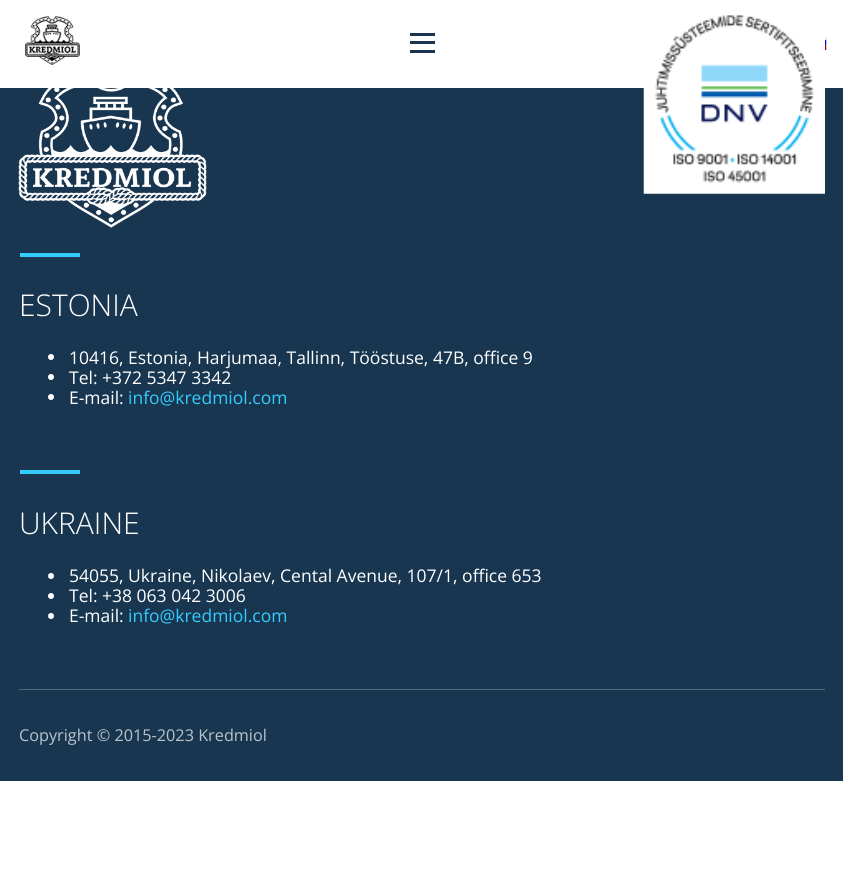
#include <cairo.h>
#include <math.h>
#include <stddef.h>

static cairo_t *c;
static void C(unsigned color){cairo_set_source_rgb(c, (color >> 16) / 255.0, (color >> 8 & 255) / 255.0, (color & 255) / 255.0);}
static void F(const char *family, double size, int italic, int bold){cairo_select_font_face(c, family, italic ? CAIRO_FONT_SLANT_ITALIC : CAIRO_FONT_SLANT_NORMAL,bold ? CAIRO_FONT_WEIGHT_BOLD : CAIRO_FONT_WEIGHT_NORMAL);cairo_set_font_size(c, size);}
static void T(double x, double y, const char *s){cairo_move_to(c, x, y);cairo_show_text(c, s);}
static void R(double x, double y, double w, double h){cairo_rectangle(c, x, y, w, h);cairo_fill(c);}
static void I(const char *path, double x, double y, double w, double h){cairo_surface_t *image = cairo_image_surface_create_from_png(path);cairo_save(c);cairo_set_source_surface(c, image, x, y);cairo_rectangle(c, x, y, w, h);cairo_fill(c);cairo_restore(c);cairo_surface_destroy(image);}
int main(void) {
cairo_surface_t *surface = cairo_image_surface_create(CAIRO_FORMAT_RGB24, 843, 890);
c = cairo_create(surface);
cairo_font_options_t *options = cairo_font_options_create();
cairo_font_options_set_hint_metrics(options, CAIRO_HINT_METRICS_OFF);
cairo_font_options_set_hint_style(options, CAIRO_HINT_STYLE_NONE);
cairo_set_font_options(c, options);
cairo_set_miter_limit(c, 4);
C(0xffffff);
cairo_paint(c);
I("1.png",25,16,55,49);
C(0x183650);
R(0,88,843,693);
I("2.png",643,15,182,179);
I("3.png",825,37,2,13);
R(410,41,25,3);
R(410,33,25,3);
R(410,50,25,3);
I("4.png",18,88,189,140);
C(0x34ccff);
R(20,253,60,4);
F("Open Sans Light",30,0,0);
C(0xffffff);
T(19,316,"ESTONIA");
cairo_new_path(c);
cairo_arc(c,51,357,3,0,2 * M_PI);
cairo_fill(c);
F("Open Sans",17.5,0,0);
T(69,364,"10416, Estonia, Harjumaa, Tallinn, Tööstuse, 47B, office 9");
cairo_new_path(c);
cairo_arc(c,51,377,3,0,2 * M_PI);
cairo_fill(c);
T(69,384,"Tel: +372 5347 3342");
cairo_new_path(c);
cairo_arc(c,51,397,3,0,2 * M_PI);
cairo_fill(c);
T(69,404,"E-mail:");
C(0x34ccff);
T(128,404,"info@kredmiol.com");
R(20,470,60,4);
F("Open Sans Light",30,0,0);
C(0xffffff);
T(19,534,"UKRAINE");
cairo_new_path(c);
cairo_arc(c,51,576,3,0,2 * M_PI);
cairo_fill(c);
F("Open Sans",17.5,0,0);
T(69,582,"54055, Ukraine, Nikolaev, Cental Avenue, 107/1, office 653");
cairo_new_path(c);
cairo_arc(c,51,596,3,0,2 * M_PI);
cairo_fill(c);
T(69,602,"Tel: +38 063 042 3006");
cairo_new_path(c);
cairo_arc(c,51,616,3,0,2 * M_PI);
cairo_fill(c);
T(69,622,"E-mail:");
C(0x34ccff);
T(128,622,"info@kredmiol.com");
C(0x52687c);
R(19,689,806,1);
F("Open Sans",16.25,0,0);
C(0xbac3cb);
T(19,741,"Copyright © 2015-2023 Kredmiol");
cairo_surface_write_to_png(surface, "o.png");
cairo_font_options_destroy(options);
cairo_destroy(c);
cairo_surface_destroy(surface);
return 0;
}
